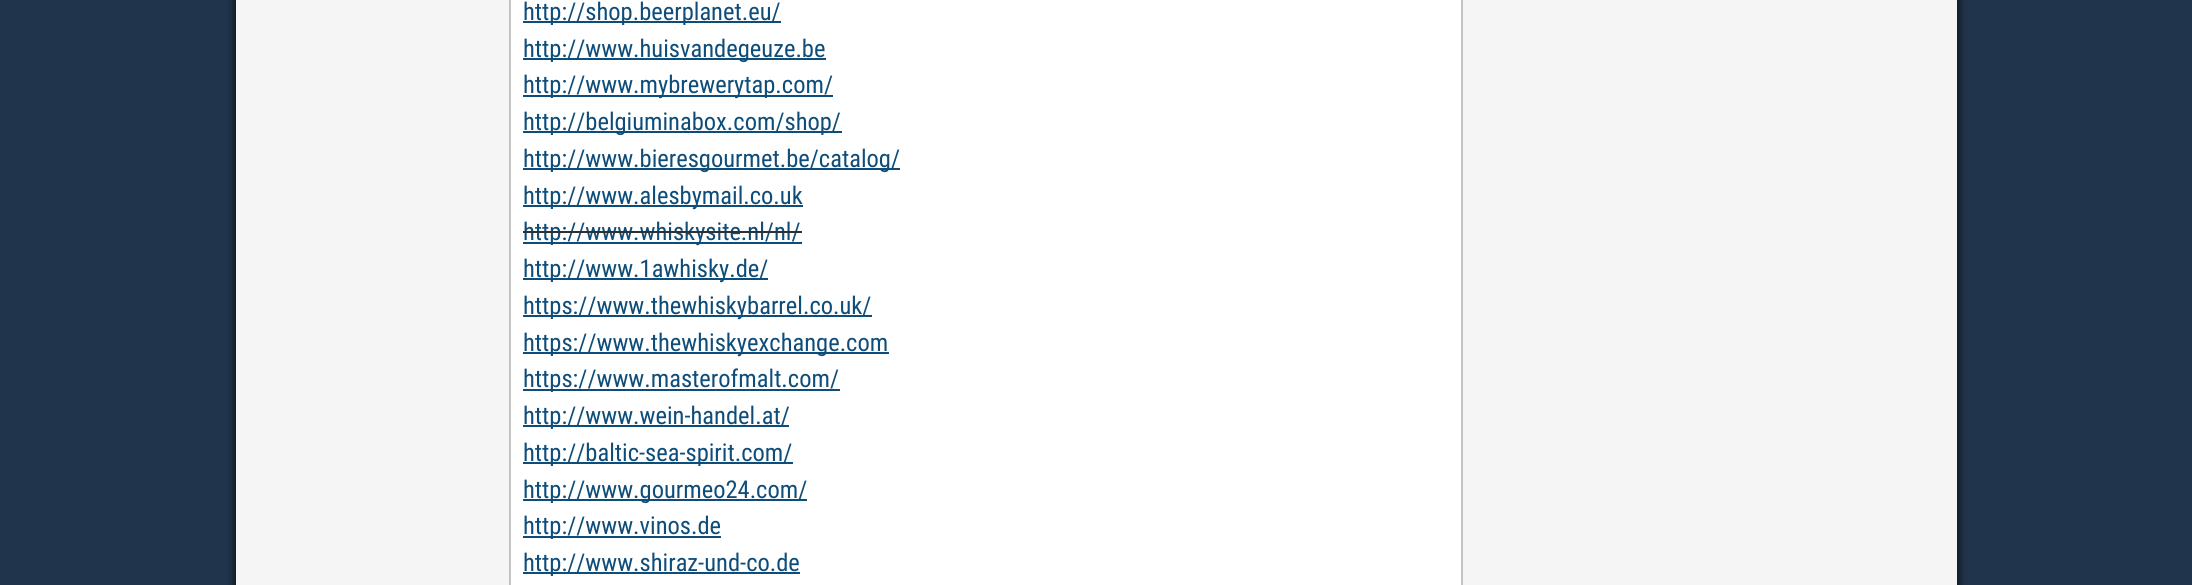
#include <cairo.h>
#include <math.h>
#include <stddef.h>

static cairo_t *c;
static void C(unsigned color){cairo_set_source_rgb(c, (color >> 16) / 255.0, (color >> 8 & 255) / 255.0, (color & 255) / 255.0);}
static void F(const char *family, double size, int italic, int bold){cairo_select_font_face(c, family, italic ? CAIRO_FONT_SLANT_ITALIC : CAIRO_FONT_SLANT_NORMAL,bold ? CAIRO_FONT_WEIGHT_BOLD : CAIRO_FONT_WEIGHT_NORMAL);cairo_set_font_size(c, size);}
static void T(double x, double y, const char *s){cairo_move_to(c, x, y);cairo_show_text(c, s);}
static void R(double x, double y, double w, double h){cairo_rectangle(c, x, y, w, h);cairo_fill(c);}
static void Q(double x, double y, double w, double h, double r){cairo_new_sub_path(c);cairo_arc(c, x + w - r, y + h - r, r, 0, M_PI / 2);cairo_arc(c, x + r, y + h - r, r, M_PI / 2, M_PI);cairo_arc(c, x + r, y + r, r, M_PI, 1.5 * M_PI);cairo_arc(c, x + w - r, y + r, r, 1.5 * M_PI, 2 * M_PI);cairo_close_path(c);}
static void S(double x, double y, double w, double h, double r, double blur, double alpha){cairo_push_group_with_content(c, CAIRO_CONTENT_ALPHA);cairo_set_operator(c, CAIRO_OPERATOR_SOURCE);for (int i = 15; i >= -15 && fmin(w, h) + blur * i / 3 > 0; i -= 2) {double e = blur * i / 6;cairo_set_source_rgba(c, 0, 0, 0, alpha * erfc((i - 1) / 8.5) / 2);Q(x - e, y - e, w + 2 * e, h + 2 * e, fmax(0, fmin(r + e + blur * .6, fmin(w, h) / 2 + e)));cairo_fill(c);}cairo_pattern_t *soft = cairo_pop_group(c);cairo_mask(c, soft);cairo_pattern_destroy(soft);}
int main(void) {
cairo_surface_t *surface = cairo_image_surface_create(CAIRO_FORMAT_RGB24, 2192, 585);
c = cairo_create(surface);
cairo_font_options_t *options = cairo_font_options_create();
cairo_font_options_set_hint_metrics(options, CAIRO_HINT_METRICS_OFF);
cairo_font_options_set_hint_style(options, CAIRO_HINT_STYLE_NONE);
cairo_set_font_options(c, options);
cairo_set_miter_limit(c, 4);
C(0x20354c);
cairo_paint(c);
C(0x000000);
S(236,-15,1721,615,0,5,1);
C(0xf5f5f5);
R(236,0,1721,585);
C(0xffffff);
cairo_rectangle(c,510,-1,952,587);
cairo_fill_preserve(c);
C(0xc3c3c3);
cairo_stroke(c);
C(0x0e4d7a);
R(523,21,258,2);
F("Roboto Condensed",24.5,0,0);
T(523,20,"http://shop.beerplanet.eu/");
R(523,58,303,2);
T(523,57,"http://www.huisvandegeuze.be");
R(523,95,310,2);
T(523,93,"http://www.mybrewerytap.com/");
R(523,131,319,2);
T(523,130,"http://belgiuminabox.com/shop/");
R(523,168,377,2);
T(523,167,"http://www.bieresgourmet.be/catalog/");
R(523,205,280,2);
T(523,204,"http://www.alesbymail.co.uk");
R(523,242,279,2);
T(523,240,"http://www.whiskysite.nl/nl/");
C(0x303030);
R(523,231,279,2);
C(0x0e4d7a);
R(523,278,245,2);
T(523,277,"http://www.1awhisky.de/");
R(523,315,349,2);
T(523,314,"https://www.thewhiskybarrel.co.uk/");
R(523,352,366,2);
T(523,351,"https://www.thewhiskyexchange.com");
R(523,389,317,2);
T(523,387,"https://www.masterofmalt.com/");
R(523,425,266,2);
T(523,424,"http://www.wein-handel.at/");
R(523,462,270,2);
T(523,461,"http://baltic-sea-spirit.com/");
R(523,499,284,2);
T(523,498,"http://www.gourmeo24.com/");
R(523,536,198,2);
T(523,534,"http://www.vinos.de");
R(523,572,277,2);
T(523,571,"http://www.shiraz-und-co.de");
cairo_surface_write_to_png(surface, "o.png");
cairo_font_options_destroy(options);
cairo_destroy(c);
cairo_surface_destroy(surface);
return 0;
}
